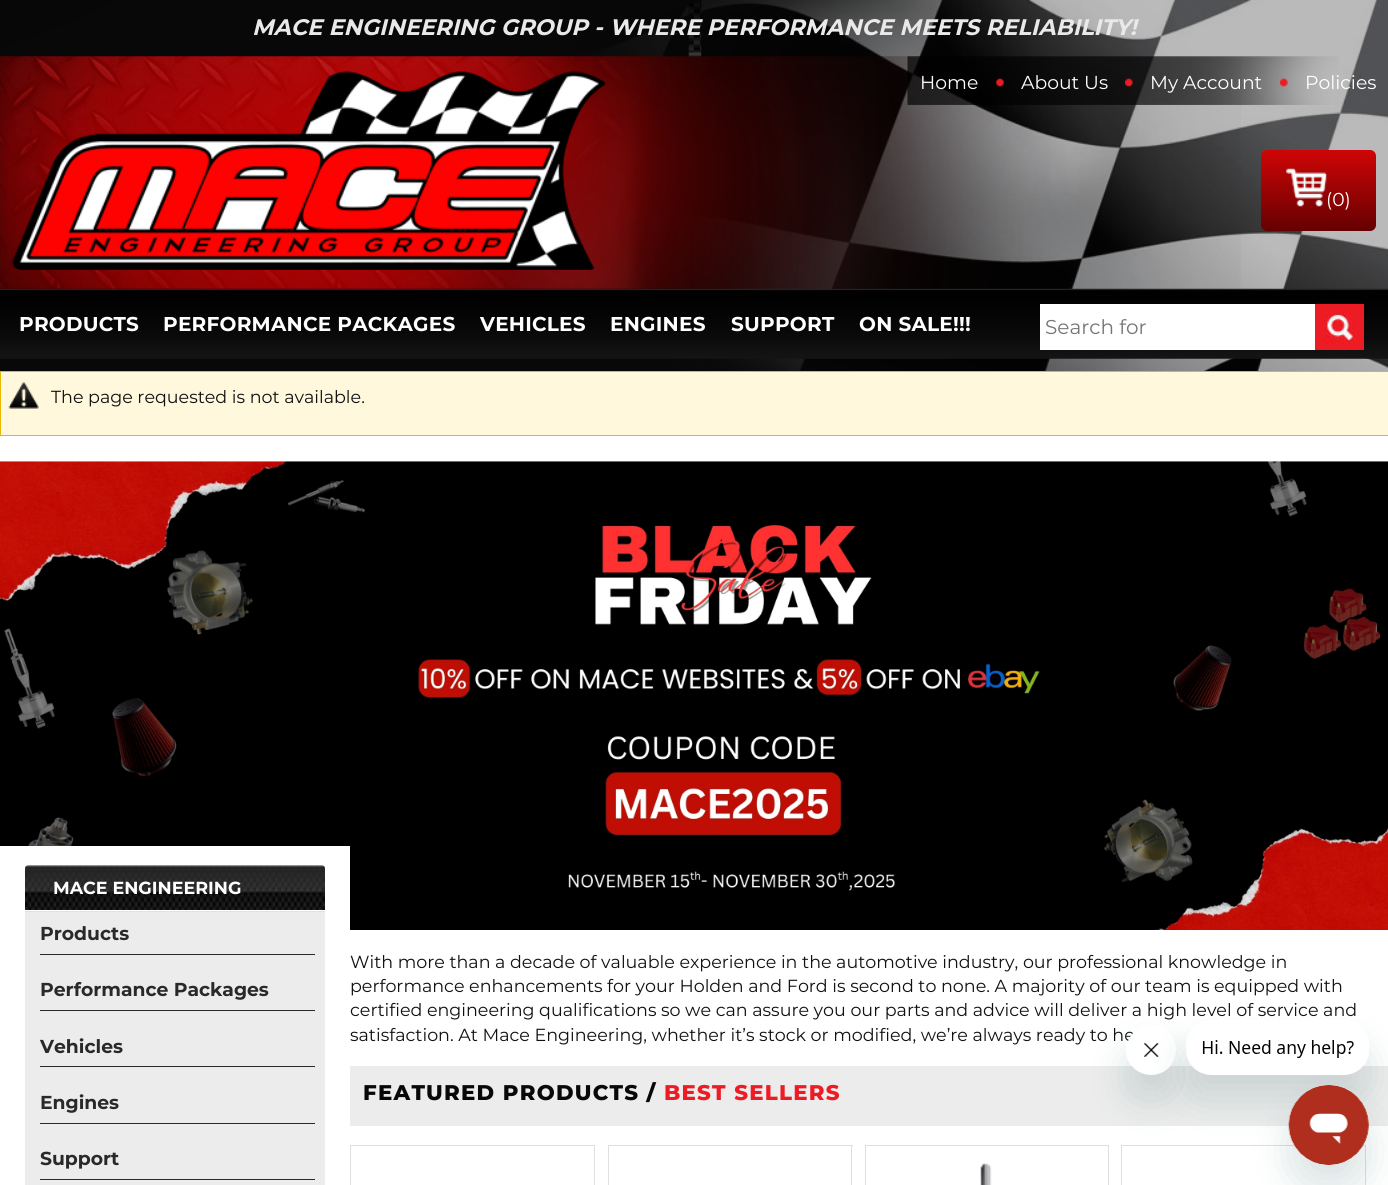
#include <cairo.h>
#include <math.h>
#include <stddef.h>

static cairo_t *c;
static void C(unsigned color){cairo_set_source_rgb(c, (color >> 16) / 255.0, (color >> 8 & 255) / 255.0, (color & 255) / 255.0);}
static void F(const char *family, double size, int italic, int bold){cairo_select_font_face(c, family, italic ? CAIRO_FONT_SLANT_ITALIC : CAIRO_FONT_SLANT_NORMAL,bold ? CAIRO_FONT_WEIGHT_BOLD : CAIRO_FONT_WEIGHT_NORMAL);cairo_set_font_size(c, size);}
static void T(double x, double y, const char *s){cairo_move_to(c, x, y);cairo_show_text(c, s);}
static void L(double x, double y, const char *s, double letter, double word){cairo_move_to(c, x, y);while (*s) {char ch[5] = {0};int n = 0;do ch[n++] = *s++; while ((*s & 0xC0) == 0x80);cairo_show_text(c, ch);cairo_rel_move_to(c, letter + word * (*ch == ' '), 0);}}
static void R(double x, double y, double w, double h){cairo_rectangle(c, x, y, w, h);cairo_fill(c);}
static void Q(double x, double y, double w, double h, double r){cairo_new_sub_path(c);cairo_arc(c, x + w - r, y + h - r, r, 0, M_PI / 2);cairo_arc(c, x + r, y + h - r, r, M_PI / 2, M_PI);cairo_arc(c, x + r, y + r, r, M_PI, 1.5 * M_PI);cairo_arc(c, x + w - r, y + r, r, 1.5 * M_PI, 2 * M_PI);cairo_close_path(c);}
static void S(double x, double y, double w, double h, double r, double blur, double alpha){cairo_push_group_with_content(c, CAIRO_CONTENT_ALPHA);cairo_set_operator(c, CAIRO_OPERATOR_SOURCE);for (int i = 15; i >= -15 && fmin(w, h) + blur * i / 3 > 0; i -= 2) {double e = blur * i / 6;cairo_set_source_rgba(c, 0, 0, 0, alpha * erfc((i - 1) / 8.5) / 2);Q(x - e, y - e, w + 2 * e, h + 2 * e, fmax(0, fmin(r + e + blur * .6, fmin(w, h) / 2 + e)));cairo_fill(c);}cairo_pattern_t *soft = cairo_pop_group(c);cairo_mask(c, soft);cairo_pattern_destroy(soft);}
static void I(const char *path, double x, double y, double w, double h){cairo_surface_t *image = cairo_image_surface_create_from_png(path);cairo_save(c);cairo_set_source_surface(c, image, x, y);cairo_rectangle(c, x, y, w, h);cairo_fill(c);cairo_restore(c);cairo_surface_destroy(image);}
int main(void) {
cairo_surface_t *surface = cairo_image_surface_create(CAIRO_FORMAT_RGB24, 1388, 1185);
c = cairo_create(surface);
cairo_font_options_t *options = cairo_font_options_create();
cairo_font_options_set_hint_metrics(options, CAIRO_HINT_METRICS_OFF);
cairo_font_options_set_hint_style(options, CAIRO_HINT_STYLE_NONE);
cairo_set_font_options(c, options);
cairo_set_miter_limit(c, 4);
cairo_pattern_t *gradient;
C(0x080808);
cairo_paint(c);
I("1.png",0,0,1388,371);
I("10.png",0,288,1388,71);
I("3.png",0,56,1241,233);
I("2.png",688,0,14,57);
F("Montserrat",22.5,1,1);
C(0xe9e9e9);
T(252,35,"MACE ENGINEERING GROUP - WHERE PERFORMANCE MEETS RELIABILITY!");
I("4.png",12,71,593,199);
I("5.png",907,56,432,49);
F("Montserrat",18.75,0,0);
C(0xffffff);
T(920,89,"Home");
I("6.png",996,78,8,9);
T(1021,89,"About Us");
I("7.png",1125,78,8,9);
T(1150,89,"My Account");
I("8.png",1280,78,8,9);
T(1305,89,"Policies");
gradient = cairo_pattern_create_linear(1319,150,1319,231);
cairo_pattern_add_color_stop_rgba(gradient,0,0.812,0.02,0.024,1);
cairo_pattern_add_color_stop_rgba(gradient,1,0.396,0.004,0.004,1);
cairo_set_source(c,gradient);
cairo_pattern_destroy(gradient);
Q(1261,150,115,81,6);
cairo_fill(c);
I("9.png",1286,168,41,39);
C(0xffffff);
T(1326,206,"(0)");
F("Montserrat",20,0,1);
L(19,331,"PRODUCTS",.25,0);
L(163,331,"PERFORMANCE PACKAGES",.25,0);
L(480,331,"VEHICLES",.25,0);
L(610,331,"ENGINES",.25,0);
L(731,331,"SUPPORT",.25,0);
L(859,331,"ON SALE!!!",.25,0);
R(1040,304,275,46);
F("Montserrat",20,0,0);
C(0x757575);
T(1045,334,"Search for");
C(0xed1c24);
R(1315,304,49,46);
I("11.png",1315,303,49,41);
C(0xffffff);
R(0,436,350,26);
C(0xfff8dd);
R(1,372,1387,63);
I("12.png",8,382,31,27);
cairo_rectangle(c,.5,371.5,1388,64);
C(0xe9b600);
cairo_set_line_width(c,1);
cairo_stroke(c);
F("Montserrat",17.5,0,0);
C(0x111111);
T(51,403,"The page requested is not available.");
C(0xffffff);
R(350,436,1038,749);
I("13.png",0,461,1388,469);
C(0x111111);
T(350,968,"With more than a decade of valuable experience in the automotive industry, our professional knowledge in");
T(350,992,"performance enhancements for your Holden and Ford is second to none. A majority of our team is equipped with");
T(350,1016,"certified engineering qualifications so we can assure you our parts and advice will deliver a high level of service and");
T(350,1041,"satisfaction. At Mace Engineering, whether it’s stock or modified, we’re always ready to he");
C(0xececec);
R(350,1066,1038,60);
F("Montserrat ExtraBold",21.25,0,0);
C(0x080808);
L(363,1100,"FEATURED PRODUCTS /",1.25,0);
C(0xed1c24);
L(664,1100,"BEST SELLERS",1.25,0);
C(0xdfdfdf);
R(350,1145,245,1);
cairo_new_path(c);
cairo_move_to(c,595,1145);
cairo_line_to(c,595,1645);
cairo_line_to(c,594,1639);
cairo_line_to(c,594,1146);
cairo_close_path(c);
cairo_fill(c);
cairo_new_path(c);
cairo_move_to(c,350,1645);
cairo_line_to(c,350,1145);
cairo_line_to(c,351,1146);
cairo_line_to(c,351,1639);
cairo_close_path(c);
cairo_fill(c);
R(608,1145,245,1);
cairo_new_path(c);
cairo_move_to(c,852,1145);
cairo_line_to(c,852,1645);
cairo_line_to(c,851,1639);
cairo_line_to(c,851,1146);
cairo_close_path(c);
cairo_fill(c);
cairo_new_path(c);
cairo_move_to(c,608,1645);
cairo_line_to(c,608,1145);
cairo_line_to(c,609,1146);
cairo_line_to(c,609,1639);
cairo_close_path(c);
cairo_fill(c);
R(865,1145,244,1);
cairo_new_path(c);
cairo_move_to(c,1109,1145);
cairo_line_to(c,1109,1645);
cairo_line_to(c,1108,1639);
cairo_line_to(c,1108,1146);
cairo_close_path(c);
cairo_fill(c);
cairo_new_path(c);
cairo_move_to(c,865,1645);
cairo_line_to(c,865,1145);
cairo_line_to(c,866,1146);
cairo_line_to(c,866,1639);
cairo_close_path(c);
cairo_fill(c);
I("14.png",980,1163,12,22);
R(1121,1145,245,1);
cairo_new_path(c);
cairo_move_to(c,1366,1145);
cairo_line_to(c,1366,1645);
cairo_line_to(c,1365,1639);
cairo_line_to(c,1365,1146);
cairo_close_path(c);
cairo_fill(c);
cairo_new_path(c);
cairo_move_to(c,1121,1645);
cairo_line_to(c,1121,1145);
cairo_line_to(c,1122,1146);
cairo_line_to(c,1122,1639);
cairo_close_path(c);
cairo_fill(c);
C(0xffffff);
R(0,846,350,339);
C(0xececec);
Q(25,865,300,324,4);
cairo_fill(c);
I("15.png",25,865,300,47);
C(0xffffff);
R(25,910,300,1);
F("Montserrat",17.5,0,1);
T(53,894,"MACE ENGINEERING");
F("Montserrat",18.75,0,1);
C(0x292929);
T(40,940,"Products");
R(40,954,275,1);
T(40,996,"Performance Packages");
R(40,1010,275,1);
T(40,1053,"Vehicles");
R(40,1066,275,1);
T(40,1109,"Engines");
R(40,1123,275,1);
T(40,1165,"Support");
R(40,1179,275,1);
cairo_save(c);
cairo_set_fill_rule(c,CAIRO_FILL_RULE_EVEN_ODD);
cairo_new_path(c);
cairo_move_to(c,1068,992);
cairo_line_to(c,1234,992);
cairo_line_to(c,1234,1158);
cairo_line_to(c,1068,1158);
cairo_close_path(c);
cairo_move_to(c,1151,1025);
cairo_curve_to(c,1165,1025,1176,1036,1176,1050);
cairo_curve_to(c,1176,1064,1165,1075,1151,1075);
cairo_curve_to(c,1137,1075,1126,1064,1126,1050);
cairo_curve_to(c,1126,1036,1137,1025,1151,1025);
cairo_close_path(c);
cairo_clip(c);
C(0x17494d);
S(1126,1050,50,50,25,19,.15);
cairo_restore(c);
I("17.png",1128,1028,42,47);
cairo_save(c);
cairo_set_fill_rule(c,CAIRO_FILL_RULE_EVEN_ODD);
cairo_new_path(c);
cairo_move_to(c,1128,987);
cairo_line_to(c,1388,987);
cairo_line_to(c,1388,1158);
cairo_line_to(c,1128,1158);
cairo_close_path(c);
cairo_move_to(c,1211,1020);
cairo_line_to(c,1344,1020);
cairo_curve_to(c,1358,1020,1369,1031,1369,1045);
cairo_line_to(c,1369,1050);
cairo_curve_to(c,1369,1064,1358,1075,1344,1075);
cairo_line_to(c,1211,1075);
cairo_curve_to(c,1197,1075,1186,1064,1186,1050);
cairo_line_to(c,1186,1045);
cairo_curve_to(c,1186,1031,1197,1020,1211,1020);
cairo_close_path(c);
cairo_clip(c);
C(0x17494d);
S(1186,1045,183,55,25,19,.15);
cairo_restore(c);
I("16.png",1187,1040,176,35);
C(0x17494d);
S(1289,1110,80,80,40,19,.15);
I("18.png",1288,1085,81,80);
cairo_surface_write_to_png(surface, "o.png");
cairo_font_options_destroy(options);
cairo_destroy(c);
cairo_surface_destroy(surface);
return 0;
}
